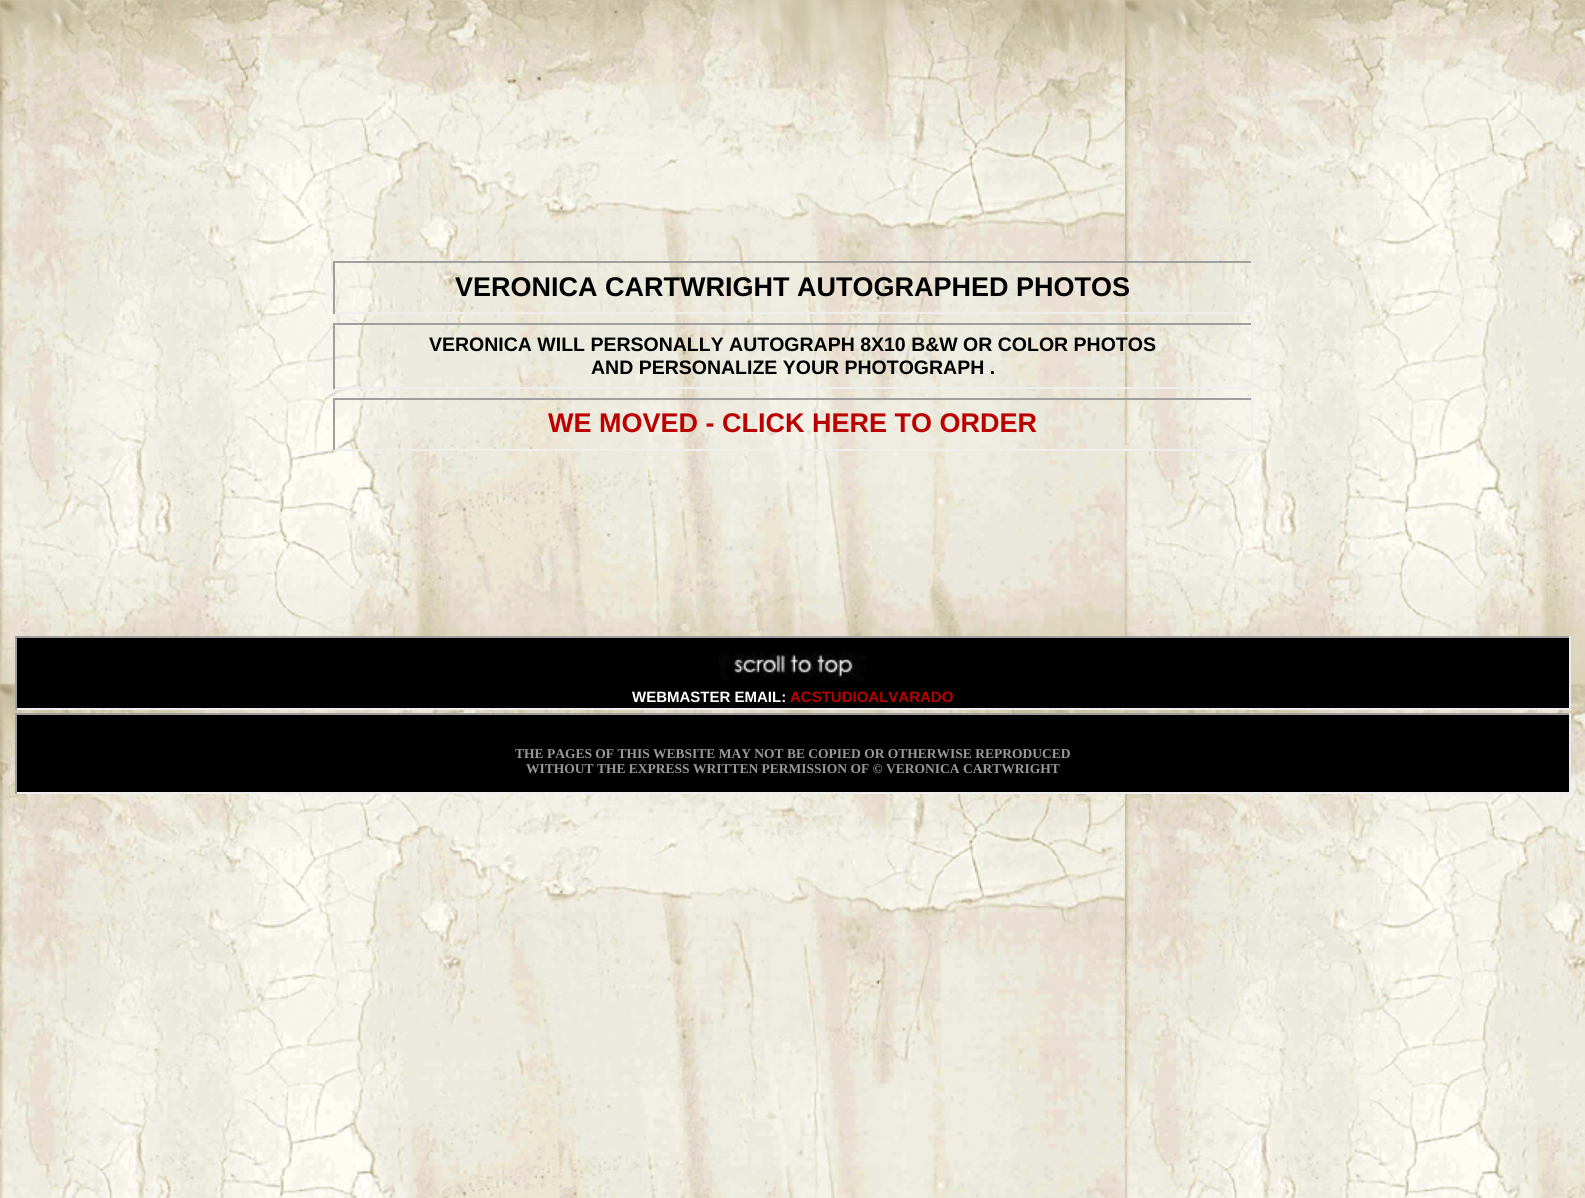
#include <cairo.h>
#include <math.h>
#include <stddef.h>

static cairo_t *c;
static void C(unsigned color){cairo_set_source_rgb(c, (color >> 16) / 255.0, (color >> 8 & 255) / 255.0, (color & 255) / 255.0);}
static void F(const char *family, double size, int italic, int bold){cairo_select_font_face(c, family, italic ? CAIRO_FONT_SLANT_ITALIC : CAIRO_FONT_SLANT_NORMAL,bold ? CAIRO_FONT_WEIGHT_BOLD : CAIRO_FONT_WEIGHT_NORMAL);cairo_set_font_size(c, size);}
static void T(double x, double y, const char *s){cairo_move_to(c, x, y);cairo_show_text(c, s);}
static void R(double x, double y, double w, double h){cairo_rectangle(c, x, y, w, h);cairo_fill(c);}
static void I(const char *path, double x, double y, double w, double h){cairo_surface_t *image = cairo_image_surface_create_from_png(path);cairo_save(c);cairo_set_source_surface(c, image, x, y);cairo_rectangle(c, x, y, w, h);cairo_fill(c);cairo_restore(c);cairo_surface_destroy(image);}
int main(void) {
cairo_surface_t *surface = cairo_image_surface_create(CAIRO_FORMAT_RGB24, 1585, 1198);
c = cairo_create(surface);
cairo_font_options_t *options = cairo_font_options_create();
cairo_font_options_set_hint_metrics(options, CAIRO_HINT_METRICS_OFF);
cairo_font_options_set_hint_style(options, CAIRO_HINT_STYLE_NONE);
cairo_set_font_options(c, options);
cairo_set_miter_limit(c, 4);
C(0xffffff);
cairo_paint(c);
I("1.png",0,0,1585,1198);
C(0x9f9f9f);
R(333,261,920,2);
C(0xeeeeee);
R(1251,261,2,53);
R(333,312,920,2);
C(0x9f9f9f);
R(333,261,2,53);
F("Liberation Sans",27,0,1);
C(0x000000);
T(455,296,"VERONICA CARTWRIGHT AUTOGRAPHED PHOTOS");
C(0x9f9f9f);
R(333,323,920,2);
C(0xeeeeee);
R(1251,323,2,66);
R(333,387,920,2);
C(0x9f9f9f);
R(333,323,2,66);
F("Liberation Sans",19.5,0,1);
C(0x000000);
T(429,351,"VERONICA WILL PERSONALLY AUTOGRAPH 8X10 B&W OR COLOR PHOTOS");
T(591,374,"AND PERSONALIZE YOUR PHOTOGRAPH .");
C(0x9f9f9f);
R(333,398,920,2);
C(0xeeeeee);
R(1251,398,2,52);
R(333,449,920,2);
C(0x9f9f9f);
R(333,398,2,52);
F("Liberation Sans",27,0,1);
C(0xbb0000);
T(548,432,"WE MOVED - CLICK HERE TO ORDER");
C(0x000000);
R(17,638,1552,70);
C(0x9f9f9f);
R(15,636,1556,2);
C(0xeeeeee);
R(1569,636,2,74);
R(15,708,1556,2);
C(0x9f9f9f);
R(15,636,2,74);
I("2.png",718,652,148,30);
F("Liberation Sans",15,0,1);
C(0xffffff);
T(632,702,"WEBMASTER EMAIL:");
C(0xbb0000);
T(790,702,"ACSTUDIOALVARADO");
C(0x000000);
R(17,715,1552,77);
C(0x9f9f9f);
R(15,713,1556,2);
C(0xeeeeee);
R(1569,713,2,81);
R(15,792,1556,2);
C(0x9f9f9f);
R(15,713,2,81);
F("Liberation Serif",13.5,0,1);
C(0x999999);
T(515,758,"THE PAGES OF THIS WEBSITE MAY NOT BE COPIED OR OTHERWISE REPRODUCED");
T(526,773,"WITHOUT THE EXPRESS WRITTEN PERMISSION OF © VERONICA CARTWRIGHT");
cairo_surface_write_to_png(surface, "o.png");
cairo_font_options_destroy(options);
cairo_destroy(c);
cairo_surface_destroy(surface);
return 0;
}
